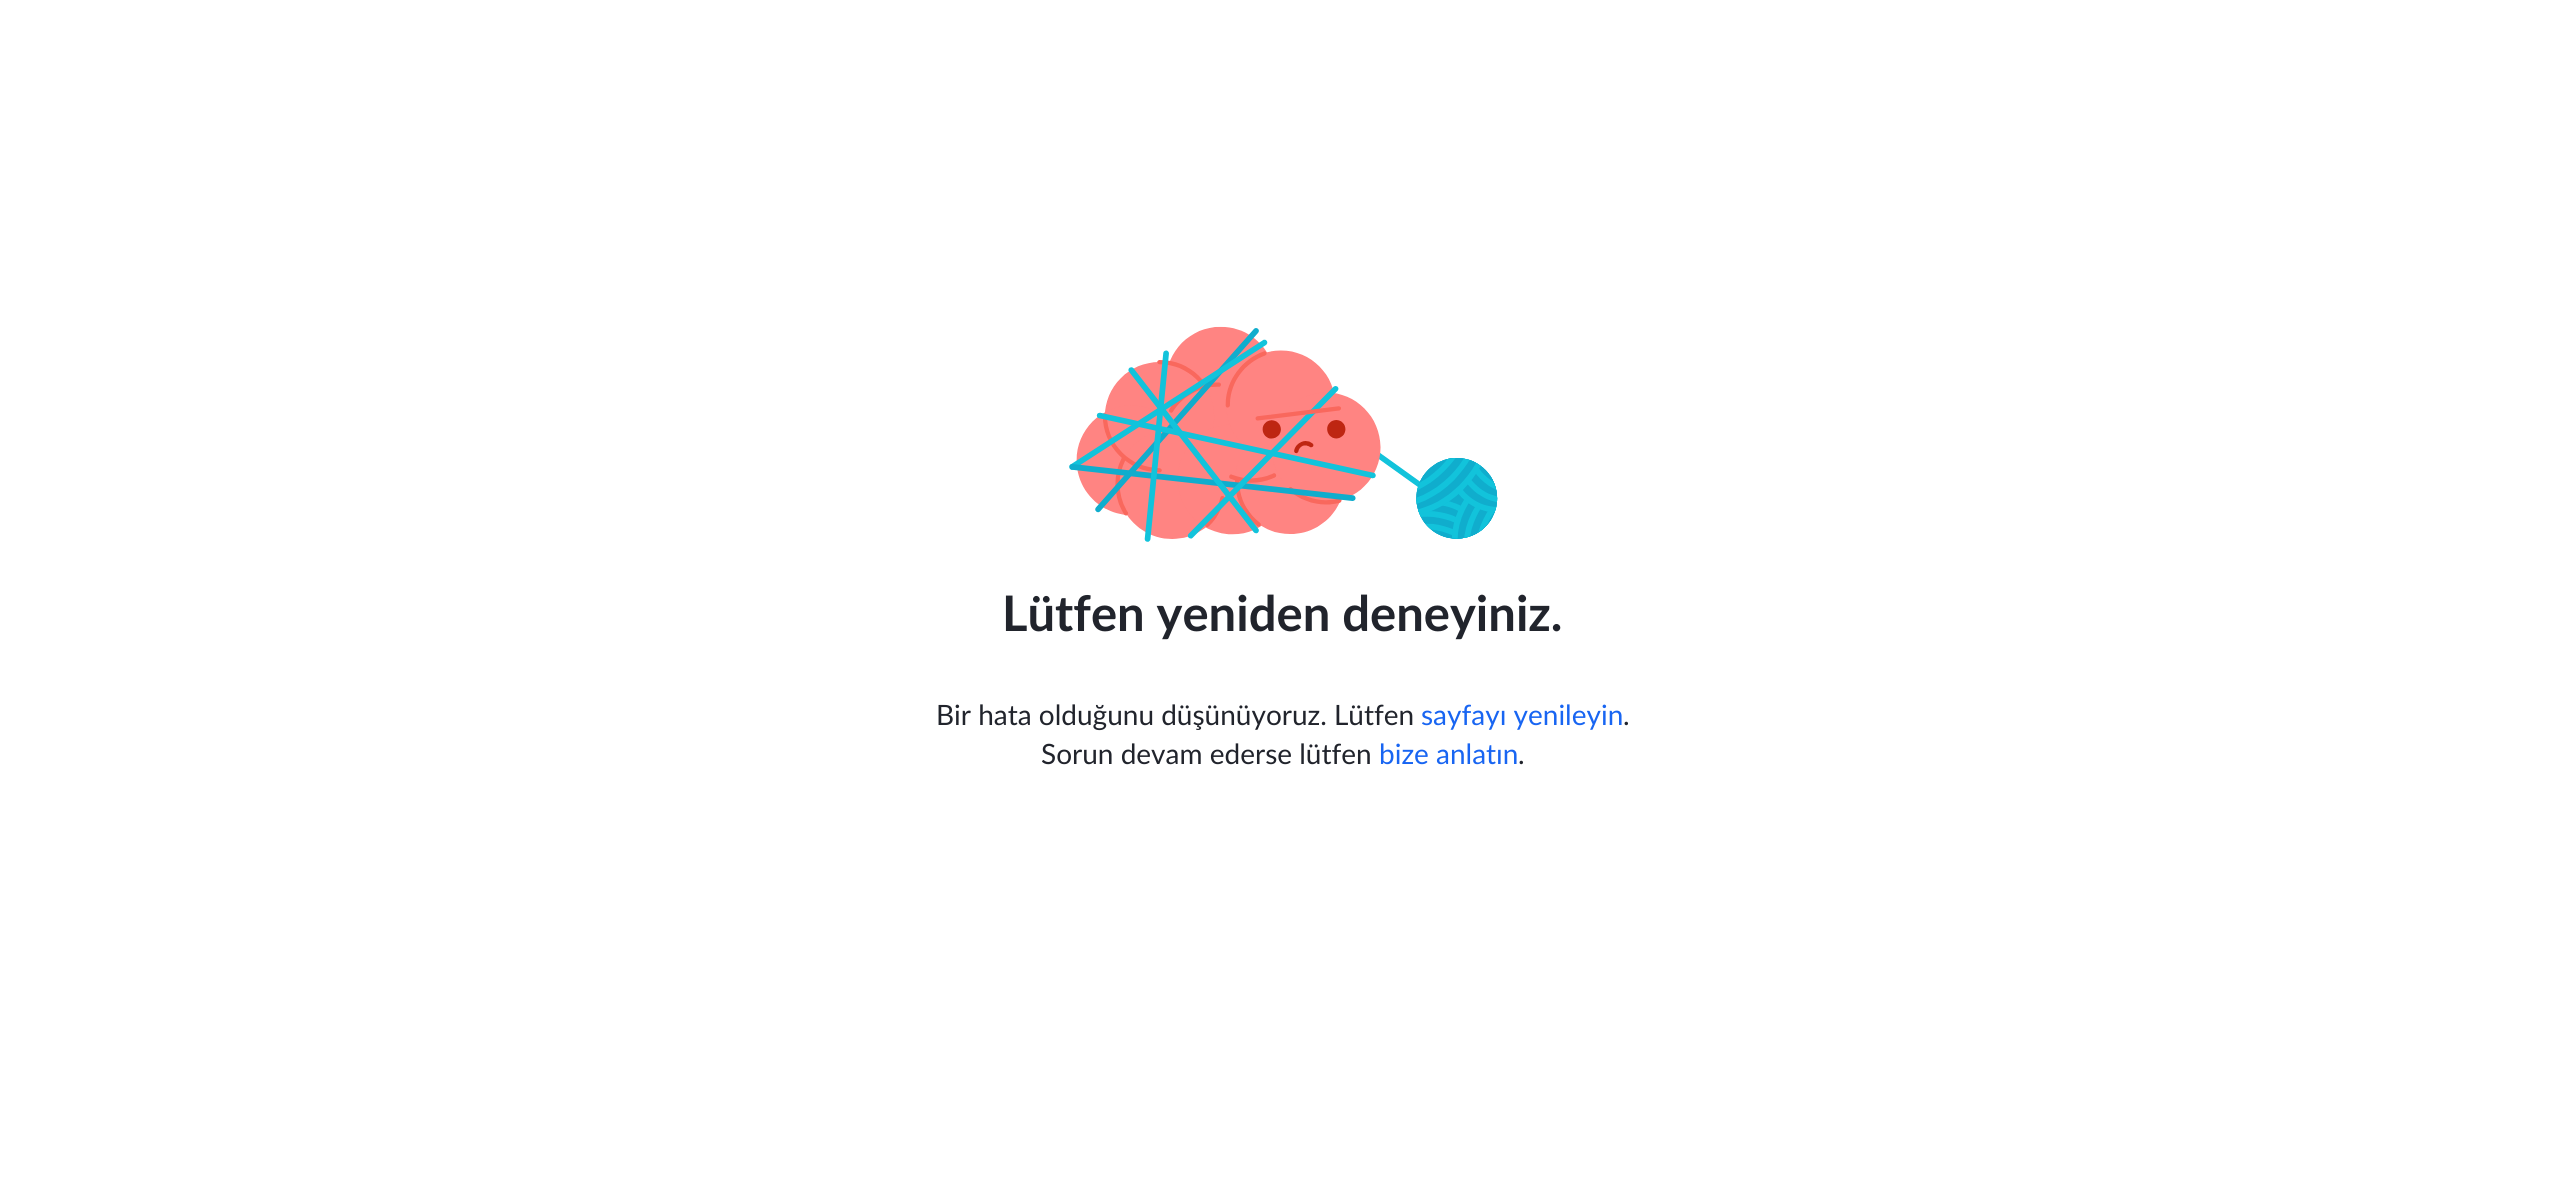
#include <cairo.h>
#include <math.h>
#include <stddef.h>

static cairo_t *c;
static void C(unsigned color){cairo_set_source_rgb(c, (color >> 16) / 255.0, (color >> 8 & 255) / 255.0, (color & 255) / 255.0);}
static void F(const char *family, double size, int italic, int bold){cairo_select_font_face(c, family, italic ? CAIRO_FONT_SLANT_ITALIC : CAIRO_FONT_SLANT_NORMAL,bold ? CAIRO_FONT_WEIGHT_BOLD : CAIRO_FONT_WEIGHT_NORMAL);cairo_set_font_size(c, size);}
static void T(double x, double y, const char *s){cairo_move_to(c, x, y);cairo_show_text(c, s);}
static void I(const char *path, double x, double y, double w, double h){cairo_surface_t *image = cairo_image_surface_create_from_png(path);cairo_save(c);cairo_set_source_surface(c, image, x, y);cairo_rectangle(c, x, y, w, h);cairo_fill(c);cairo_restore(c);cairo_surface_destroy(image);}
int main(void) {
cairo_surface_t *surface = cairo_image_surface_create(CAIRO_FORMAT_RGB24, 2564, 1202);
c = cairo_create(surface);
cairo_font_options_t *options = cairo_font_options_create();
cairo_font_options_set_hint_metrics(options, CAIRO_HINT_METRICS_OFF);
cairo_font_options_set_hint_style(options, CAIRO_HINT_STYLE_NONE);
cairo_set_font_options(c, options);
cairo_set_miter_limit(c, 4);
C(0xffffff);
cairo_paint(c);
I("1.png",1069,326,429,216);
F("Lato",49,0,1);
C(0x21242c);
T(1002,631,"Lütfen yeniden deneyiniz.");
F("Lato",28,0,0);
T(936,725,"Bir hata olduğunu düşünüyoruz. Lütfen");
C(0x1865f2);
T(1421,725,"sayfayı yenileyin");
C(0x21242c);
T(1623,725,".");
T(1041,764,"Sorun devam ederse lütfen");
C(0x1865f2);
T(1379,764,"bize anlatın");
C(0x21242c);
T(1518,764,".");
cairo_surface_write_to_png(surface, "o.png");
cairo_font_options_destroy(options);
cairo_destroy(c);
cairo_surface_destroy(surface);
return 0;
}
